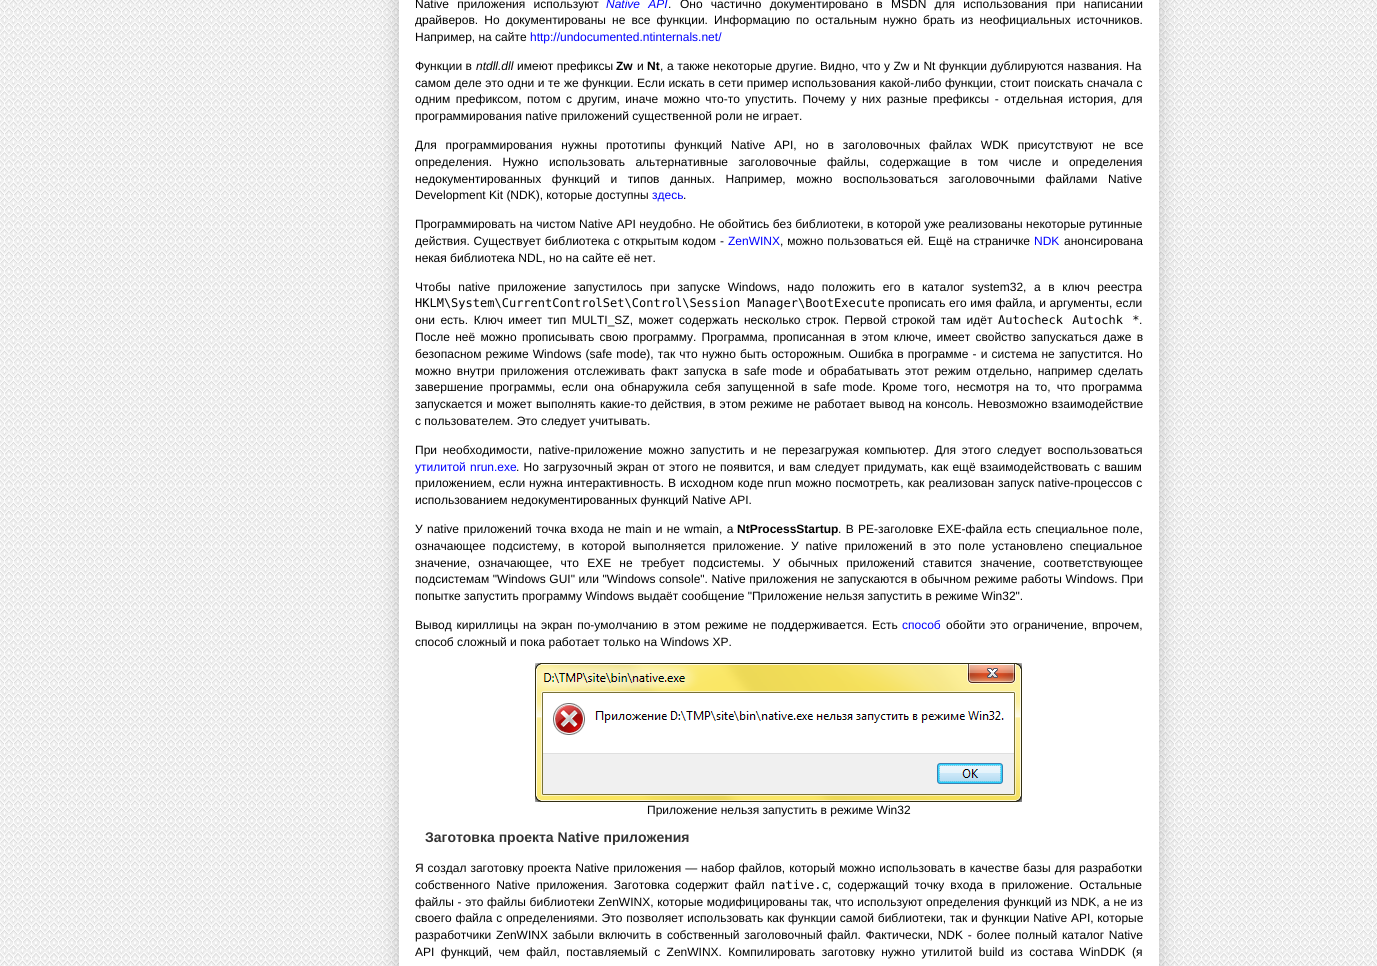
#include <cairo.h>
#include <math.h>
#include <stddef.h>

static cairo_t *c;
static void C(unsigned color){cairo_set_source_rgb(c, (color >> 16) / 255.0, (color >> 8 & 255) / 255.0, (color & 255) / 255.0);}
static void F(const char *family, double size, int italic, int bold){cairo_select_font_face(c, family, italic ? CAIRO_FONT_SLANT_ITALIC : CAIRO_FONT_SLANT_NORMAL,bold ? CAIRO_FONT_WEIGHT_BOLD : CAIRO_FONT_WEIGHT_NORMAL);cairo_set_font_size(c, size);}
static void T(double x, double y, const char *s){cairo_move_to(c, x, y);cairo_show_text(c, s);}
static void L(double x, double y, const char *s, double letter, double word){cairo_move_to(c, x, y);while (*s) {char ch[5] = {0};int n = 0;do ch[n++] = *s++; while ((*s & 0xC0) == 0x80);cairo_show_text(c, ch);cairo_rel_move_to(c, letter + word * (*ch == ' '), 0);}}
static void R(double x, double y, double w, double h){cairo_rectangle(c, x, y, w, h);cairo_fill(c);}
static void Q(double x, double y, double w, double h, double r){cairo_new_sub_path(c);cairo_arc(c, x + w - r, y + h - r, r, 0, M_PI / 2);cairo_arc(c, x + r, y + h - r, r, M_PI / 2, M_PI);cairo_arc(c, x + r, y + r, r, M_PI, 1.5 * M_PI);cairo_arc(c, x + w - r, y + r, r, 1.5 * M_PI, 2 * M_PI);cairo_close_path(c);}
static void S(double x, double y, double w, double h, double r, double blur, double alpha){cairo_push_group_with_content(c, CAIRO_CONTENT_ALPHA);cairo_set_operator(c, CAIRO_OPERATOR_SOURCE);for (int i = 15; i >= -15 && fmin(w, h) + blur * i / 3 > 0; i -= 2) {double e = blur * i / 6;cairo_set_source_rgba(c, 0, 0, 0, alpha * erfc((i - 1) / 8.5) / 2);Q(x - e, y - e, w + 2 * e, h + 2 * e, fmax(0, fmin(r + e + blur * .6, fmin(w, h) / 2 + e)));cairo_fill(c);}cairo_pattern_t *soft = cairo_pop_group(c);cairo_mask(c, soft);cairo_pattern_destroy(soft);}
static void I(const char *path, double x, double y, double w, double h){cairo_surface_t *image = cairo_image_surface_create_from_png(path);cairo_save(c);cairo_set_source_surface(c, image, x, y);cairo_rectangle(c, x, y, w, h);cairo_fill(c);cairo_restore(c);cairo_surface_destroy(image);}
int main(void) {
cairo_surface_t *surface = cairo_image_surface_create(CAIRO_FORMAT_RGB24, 1377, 966);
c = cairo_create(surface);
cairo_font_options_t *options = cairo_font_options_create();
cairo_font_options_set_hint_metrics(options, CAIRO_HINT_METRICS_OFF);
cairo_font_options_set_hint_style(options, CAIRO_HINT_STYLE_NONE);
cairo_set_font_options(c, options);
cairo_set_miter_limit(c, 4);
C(0xffffff);
cairo_paint(c);
I("1.png",0,0,1377,966);
C(0x000000);
S(399,-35,760,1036,5,10,.2);
C(0xffffff);
R(399,0,760,966);
F("Liberation Sans",12,0,0);
C(0x000000);
L(415,8,"Native приложения используют",0,4.9);
F("Liberation Sans",12,1,0);
C(0x0000ff);
L(606,8,"Native API",0,4.9);
F("Liberation Sans",12,0,0);
C(0x000000);
T(668,8,".");
L(680,8,"Оно частично документировано в MSDN для использования при написании",0,4.9);
L(415,24,"драйверов. Но документированы не все функции. Информацию по остальным нужно брать из неофициальных источников.",0,2.75);
T(415,41,"Например, на сайте");
C(0x0000ff);
T(530,41,"http://undocumented.ntinternals.net/");
C(0x000000);
T(415,70,"Функции в");
F("Liberation Sans",12,1,0);
T(476,70,"ntdll.dll");
F("Liberation Sans",12,0,0);
L(517,70,"имеют префиксы",0,.25);
F("Liberation Sans",12,0,1);
T(616,70,"Zw");
F("Liberation Sans",12,0,0);
T(637,70,"и");
F("Liberation Sans",12,0,1);
T(647,70,"Nt");
F("Liberation Sans",12,0,0);
L(660,70,", а также некоторые другие.",0,.25);
L(820,70,"Видно, что у Zw и Nt функции дублируются названия. На",0,.25);
L(415,87,"самом деле это одни и те же функции. Если искать в сети пример использования какой-либо функции, стоит поискать сначала с",0,.25);
L(415,103,"одним префиксом, потом с другим, иначе можно что-то упустить. Почему у них разные префиксы - отдельная история, для",0,2.1);
T(415,120,"программирования native приложений существенной роли не играет.");
L(415,149,"Для программирования нужны прототипы функций Native API, но в заголовочных файлах WDK присутствуют не все",0,5.5);
L(415,166,"определения. Нужно использовать альтернативные заголовочные файлы, содержащие в том числе и определения",0,7.1);
L(415,183,"недокументированных функций и типов данных. Например, можно воспользоваться заголовочными файлами Native",0,7.25);
T(415,199,"Development Kit (NDK), которые доступны");
C(0x0000ff);
T(652,199,"здесь");
C(0x000000);
T(683,199,".");
L(415,228,"Программировать на чистом Native API неудобно. Не обойтись без библиотеки, в которой уже реализованы некоторые рутинные",0,.1);
L(415,245,"действия. Существует библиотека с открытым кодом -",0,.5);
C(0x0000ff);
T(728,245,"ZenWINX");
C(0x000000);
L(780,245,", можно пользоваться ей.",0,.5);
L(928,245,"Ещё на страничке",0,.5);
C(0x0000ff);
T(1034,245,"NDK");
C(0x000000);
T(1064,245,"анонсирована");
T(415,262,"некая библиотека NDL, но на сайте её нет.");
L(415,291,"Чтобы native приложение запустилось при запуске Windows, надо положить его в каталог system32, а в ключ реестра",0,4.25);
F("DejaVu Sans Mono",12,0,0);
T(415,307,"HKLM\\System\\CurrentControlSet\\Control\\Session Manager\\BootExecute");
F("Liberation Sans",12,0,0);
L(888,307,"прописать его имя файла, и аргументы, если",0,.25);
L(415,324,"они есть. Ключ имеет тип MULTI_SZ, может содержать несколько строк. Первой строкой там идёт",0,2.1);
F("DejaVu Sans Mono",12,0,0);
L(998,324,"Autocheck Autochk *",0,2.1);
F("Liberation Sans",12,0,0);
T(1139,324,".");
L(415,341,"После неё можно прописывать свою программу. Программа, прописанная в этом ключе, имеет свойство запускаться даже в",0,1.9);
L(415,358,"безопасном режиме Windows (safe mode), так что нужно быть осторожным. Ошибка в программе - и система не запустится. Но",0,.8);
L(415,375,"можно внутри приложения отслеживать факт запуска в safe mode и обрабатывать этот режим отдельно, например сделать",0,2.25);
L(415,391,"завершение программы, если она обнаружила себя запущенной в safe mode. Кроме того, несмотря на то, что программа",0,2.9);
L(415,408,"запускается и может выполнять какие-то действия, в этом режиме не работает вывод на консоль. Невозможно взаимодействие",0,.6);
T(415,425,"с пользователем. Это следует учитывать.");
L(415,454,"При необходимости, native-приложение можно запустить и не перезагружая компьютер. Для этого следует воспользоваться",0,2.4);
C(0x0000ff);
L(415,471,"утилитой nrun.exe",0,.9);
C(0x000000);
L(516,471,". Но загрузочный экран от этого не появится, и вам следует придумать, как ещё взаимодействовать с вашим",0,.9);
L(415,487,"приложением, если нужна интерактивность. В исходном коде nrun можно посмотреть, как реализован запуск native-процессов с",0,.6);
T(415,504,"использованием недокументированных функций Native API.");
L(415,533,"У native приложений точка входа не main и не wmain, а",0,1);
F("Liberation Sans",12,0,1);
T(737,533,"NtProcessStartup");
F("Liberation Sans",12,0,0);
L(838,533,". В PE-заголовке EXE-файла есть специальное поле,",0,1);
L(415,550,"означающее подсистему, в которой выполняется приложение. У native приложений в это поле установлено специальное",0,3.6);
L(415,567,"значение, означающее, что EXE не требует подсистемы. У обычных приложений ставится значение, соответствующее",0,4.9);
L(415,583,"подсистемам \"Windows GUI\" или \"Windows console\". Native приложения не запускаются в обычном режиме работы Windows. При",0,.25);
T(415,600,"попытке запустить программу Windows выдаёт сообщение \"Приложение нельзя запустить в режиме Win32\".");
L(415,629,"Вывод кириллицы на экран по-умолчанию в этом режиме не поддерживается. Есть",0,1.5);
C(0x0000ff);
T(902,629,"способ");
C(0x000000);
L(946,629,"обойти это ограничение, впрочем,",0,1.5);
T(415,646,"способ сложный и пока работает только на Windows XP.");
I("2.png",535,663,487,139);
T(647,814,"Приложение нельзя запустить в режиме Win32");
F("Liberation Sans",14,0,1);
C(0x333333);
T(425,842,"Заготовка проекта Native приложения");
F("Liberation Sans",12,0,0);
C(0x000000);
L(415,872,"Я создал заготовку проекта Native приложения — набор файлов, который можно использовать в качестве базы для разработки",0,.6);
L(415,889,"собственного Native приложения. Заготовка содержит файл",0,2.75);
F("DejaVu Sans Mono",12,0,0);
T(771,889,"native.c");
F("Liberation Sans",12,0,0);
L(828,889,", содержащий точку входа в приложение. Остальные",0,2.75);
L(415,906,"файлы - это файлы библиотеки ZenWINX, которые модифицированы так, что используют определения функций из NDK, а не из",0,.3);
L(415,922,"своего файла с определениями. Это позволяет использовать как функции самой библиотеки, так и функции Native API, которые",0,.4);
L(415,939,"разработчики ZenWINX забыли включить в собственный заголовочный файл. Фактически, NDK - более полный каталог Native",0,1.4);
L(415,956,"API функций, чем файл, поставляемый с ZenWINX. Компилировать заготовку нужно утилитой build из состава WinDDK (я",0,3.1);
cairo_surface_write_to_png(surface, "o.png");
cairo_font_options_destroy(options);
cairo_destroy(c);
cairo_surface_destroy(surface);
return 0;
}
